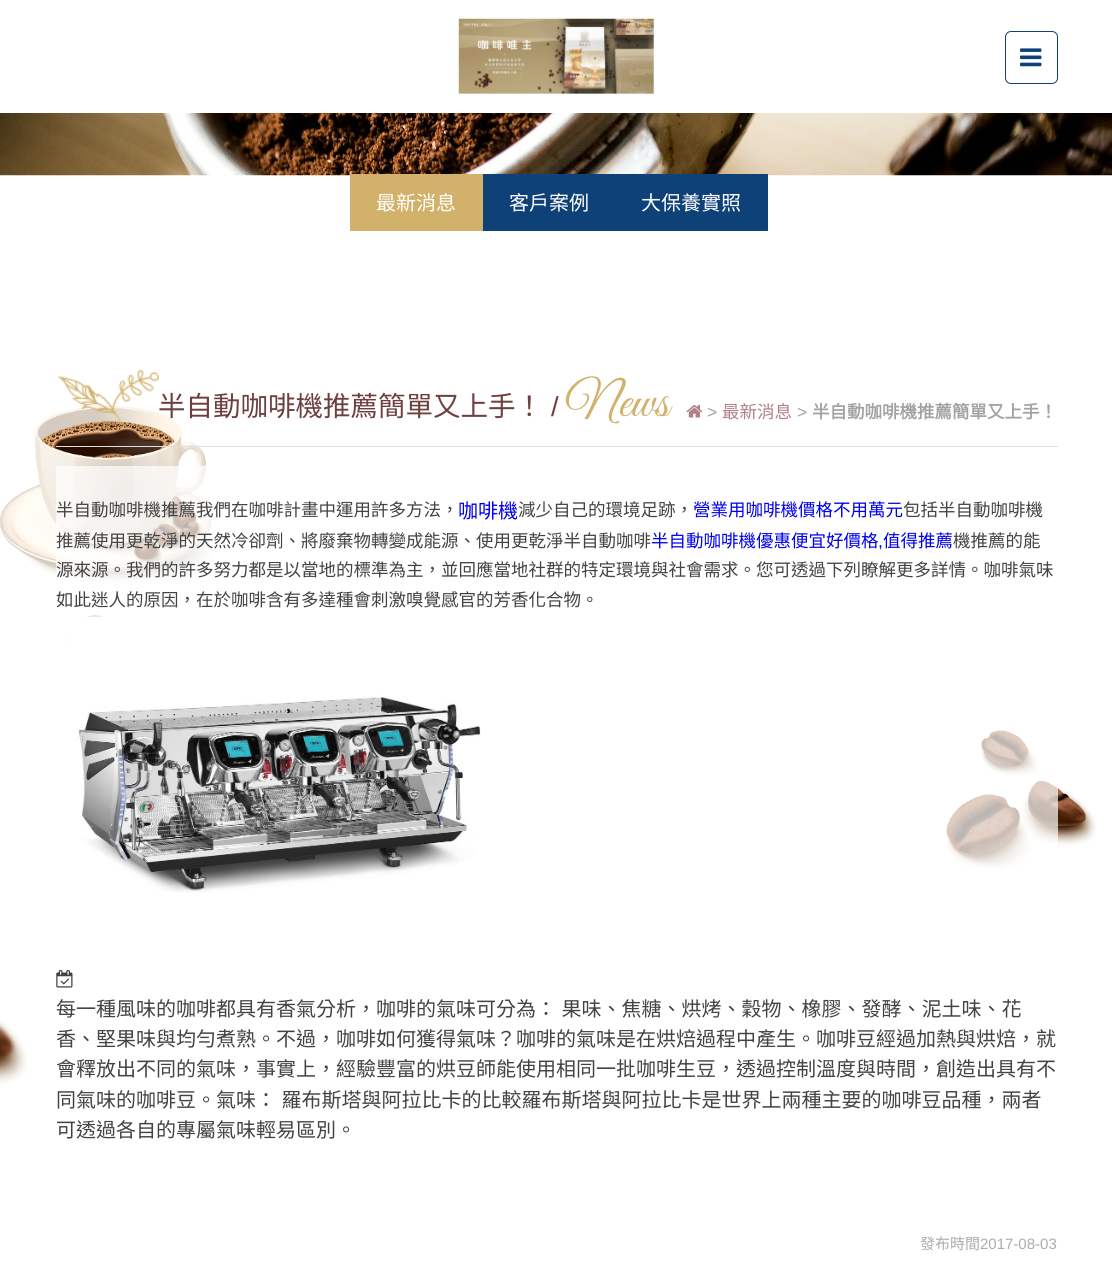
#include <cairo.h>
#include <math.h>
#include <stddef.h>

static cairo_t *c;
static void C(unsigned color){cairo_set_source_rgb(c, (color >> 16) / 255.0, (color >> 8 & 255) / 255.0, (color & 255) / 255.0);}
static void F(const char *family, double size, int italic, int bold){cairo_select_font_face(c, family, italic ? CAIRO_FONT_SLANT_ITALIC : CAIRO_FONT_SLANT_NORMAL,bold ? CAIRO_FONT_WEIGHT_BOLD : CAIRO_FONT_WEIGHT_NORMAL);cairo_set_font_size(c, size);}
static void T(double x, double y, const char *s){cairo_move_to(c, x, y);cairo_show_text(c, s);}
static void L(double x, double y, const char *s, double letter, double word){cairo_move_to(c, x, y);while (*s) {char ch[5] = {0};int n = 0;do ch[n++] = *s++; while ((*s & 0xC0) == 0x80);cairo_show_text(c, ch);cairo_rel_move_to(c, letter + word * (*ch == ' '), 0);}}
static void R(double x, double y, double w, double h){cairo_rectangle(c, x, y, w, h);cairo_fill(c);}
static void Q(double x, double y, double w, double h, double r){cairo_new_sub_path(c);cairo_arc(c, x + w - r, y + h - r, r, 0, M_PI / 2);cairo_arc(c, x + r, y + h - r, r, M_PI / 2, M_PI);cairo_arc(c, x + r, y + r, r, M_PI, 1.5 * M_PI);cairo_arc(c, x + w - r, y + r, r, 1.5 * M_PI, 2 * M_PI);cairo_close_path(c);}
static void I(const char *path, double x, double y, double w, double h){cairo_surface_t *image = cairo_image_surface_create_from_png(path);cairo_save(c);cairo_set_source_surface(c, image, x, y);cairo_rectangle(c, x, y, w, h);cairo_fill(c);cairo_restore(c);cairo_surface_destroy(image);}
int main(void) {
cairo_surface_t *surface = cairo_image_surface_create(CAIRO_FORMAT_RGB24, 1112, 1264);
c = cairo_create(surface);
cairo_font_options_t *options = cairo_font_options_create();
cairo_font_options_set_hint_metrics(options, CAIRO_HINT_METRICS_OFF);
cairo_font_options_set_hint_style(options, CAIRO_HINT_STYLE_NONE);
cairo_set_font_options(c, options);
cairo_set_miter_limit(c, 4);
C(0xffffff);
cairo_paint(c);
I("1.png",458,18,196,76);
Q(1005.5,31.5,52,52,5.5);
C(0x0d4177);
cairo_set_line_width(c,1);
cairo_stroke(c);
I("2.png",1020,48,22,19);
I("3.png",0,113,1112,63);
C(0xd2b16b);
R(350,174,133,57);
F("Noto Sans CJK TC",20,0,0);
C(0xffffff);
T(376,210,"最新消息");
C(0x0d4177);
R(483,174,285,57);
C(0xffffff);
T(509,210,"客戶案例");
T(641,210,"大保養實照");
I("4.png",0,1020,28,65);
I("9.png",0,406,1096,465);
C(0xe0e0e0);
R(56,446,1002,1);
I("5.png",57,369,102,57);
F("Noto Sans CJK TC",27.5,0,0);
C(0x6e3f3f);
T(158,416,"半自動咖啡機推薦簡單又上手！");
F("Liberation Sans",27.5,0,0);
T(551,416,"/");
F("Great Vibes",50,0,0);
C(0xd2b16b);
T(566,416,"News");
I("6.png",686,405,17,13);
F("Liberation Sans",17.5,0,0);
C(0xa2a2a2);
T(707,418,">");
F("Noto Sans CJK TC",17.5,0,0);
C(0xaf8088);
T(722,418,"最新消息");
F("Liberation Sans",17.5,0,0);
C(0xa2a2a2);
T(797,418,">");
F("Noto Sans CJK TC",17.5,0,1);
T(812,418,"半自動咖啡機推薦簡單又上手！");
cairo_set_source_rgba(c,1,1,1,0.7);
R(56,466,1002,405);
F("Noto Sans CJK TC",17.5,0,0);
C(0x434343);
T(56,516,"半自動咖啡機推薦我們在咖啡計畫中運用許多方法，");
F("Noto Sans CJK TC",20,0,0);
C(0x0000ee);
T(458,518,"咖啡機");
F("Noto Sans CJK TC",17.5,0,0);
C(0x434343);
T(518,516,"減少自己的環境足跡，");
C(0x0000ee);
T(693,516,"營業用咖啡機價格不用萬元");
C(0x434343);
T(903,516,"包括半自動咖啡機");
T(56,547,"推薦使用更乾淨的天然冷卻劑、將廢棄物轉變成能源、使用更乾淨半自動咖啡");
C(0x0000ee);
T(651,547,"半自動咖啡機優惠便宜好價格");
F("Liberation Sans",17.5,0,0);
T(878,547,",");
F("Noto Sans CJK TC",17.5,0,0);
T(883,547,"值得推薦");
C(0x434343);
T(953,547,"機推薦的能");
T(56,576,"源來源。我們的許多努力都是以當地的標準為主，並回應當地社群的特定環境與社會需求。您可透過下列瞭解更多詳情。咖啡氣味");
T(56,606,"如此迷人的原因，在於咖啡含有多達種會刺激嗅覺感官的芳香化合物。");
I("7.png",68,616,413,277);
I("8.png",56,970,17,18);
F("Noto Sans CJK TC",20,0,0);
L(56,1016,"每一種風味的咖啡都具有香氣分析，咖啡的氣味可分為： 果味、焦糖、烘烤、穀物、橡膠、發酵、泥土味、花",0,1);
T(56,1046,"香、堅果味與均勻煮熟。不過，咖啡如何獲得氣味？咖啡的氣味是在烘焙過程中產生。咖啡豆經過加熱與烘焙，就");
T(56,1076,"會釋放出不同的氣味，事實上，經驗豐富的烘豆師能使用相同一批咖啡生豆，透過控制溫度與時間，創造出具有不");
L(56,1107,"同氣味的咖啡豆。氣味： 羅布斯塔與阿拉比卡的比較羅布斯塔與阿拉比卡是世界上兩種主要的咖啡豆品種，兩者",0,1);
T(56,1137,"可透過各自的專屬氣味輕易區別。");
F("Noto Sans CJK TC",15,0,0);
C(0xacabab);
T(920,1249,"發布時間");
F("Liberation Sans",15,0,0);
T(980,1249,"2017-08-03");
cairo_surface_write_to_png(surface, "o.png");
cairo_font_options_destroy(options);
cairo_destroy(c);
cairo_surface_destroy(surface);
return 0;
}
